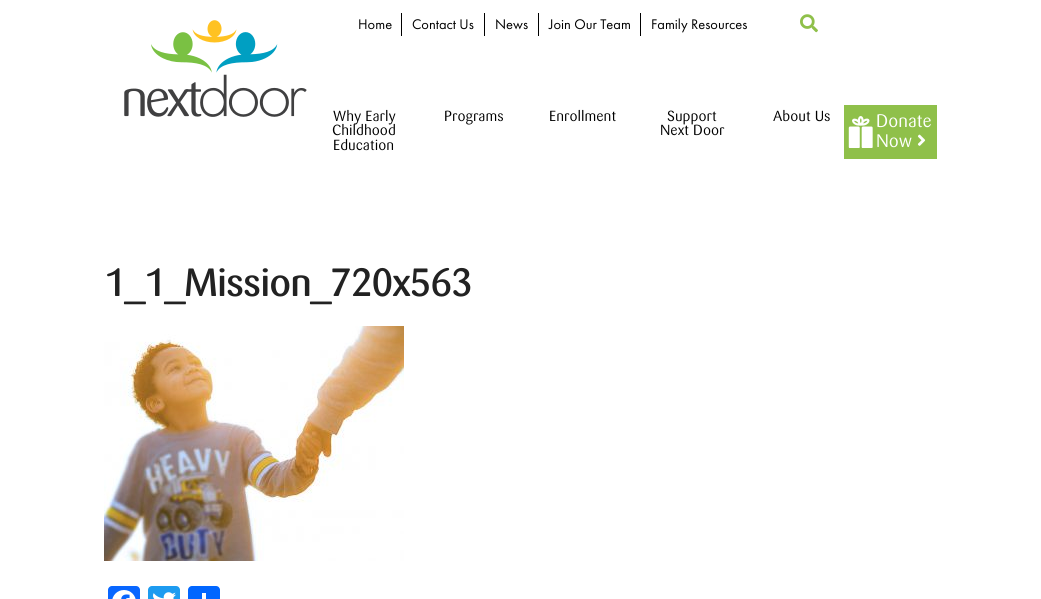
#include <cairo.h>
#include <math.h>
#include <stddef.h>

static cairo_t *c;
static void C(unsigned color){cairo_set_source_rgb(c, (color >> 16) / 255.0, (color >> 8 & 255) / 255.0, (color & 255) / 255.0);}
static void F(const char *family, double size, int italic, int bold){cairo_select_font_face(c, family, italic ? CAIRO_FONT_SLANT_ITALIC : CAIRO_FONT_SLANT_NORMAL,bold ? CAIRO_FONT_WEIGHT_BOLD : CAIRO_FONT_WEIGHT_NORMAL);cairo_set_font_size(c, size);}
static void T(double x, double y, const char *s){cairo_move_to(c, x, y);cairo_show_text(c, s);}
static void L(double x, double y, const char *s, double letter, double word){cairo_move_to(c, x, y);while (*s) {char ch[5] = {0};int n = 0;do ch[n++] = *s++; while ((*s & 0xC0) == 0x80);cairo_show_text(c, ch);cairo_rel_move_to(c, letter + word * (*ch == ' '), 0);}}
static void R(double x, double y, double w, double h){cairo_rectangle(c, x, y, w, h);cairo_fill(c);}
static void Q(double x, double y, double w, double h, double r){cairo_new_sub_path(c);cairo_arc(c, x + w - r, y + h - r, r, 0, M_PI / 2);cairo_arc(c, x + r, y + h - r, r, M_PI / 2, M_PI);cairo_arc(c, x + r, y + r, r, M_PI, 1.5 * M_PI);cairo_arc(c, x + w - r, y + r, r, 1.5 * M_PI, 2 * M_PI);cairo_close_path(c);}
static void I(const char *path, double x, double y, double w, double h){cairo_surface_t *image = cairo_image_surface_create_from_png(path);cairo_save(c);cairo_set_source_surface(c, image, x, y);cairo_rectangle(c, x, y, w, h);cairo_fill(c);cairo_restore(c);cairo_surface_destroy(image);}
int main(void) {
cairo_surface_t *surface = cairo_image_surface_create(CAIRO_FORMAT_RGB24, 1041, 599);
c = cairo_create(surface);
cairo_font_options_t *options = cairo_font_options_create();
cairo_font_options_set_hint_metrics(options, CAIRO_HINT_METRICS_OFF);
cairo_font_options_set_hint_style(options, CAIRO_HINT_STYLE_NONE);
cairo_set_font_options(c, options);
cairo_set_miter_limit(c, 4);
C(0xffffff);
cairo_paint(c);
I("1.png",124,20,183,97);
C(0x000000);
R(401,13,1,23);
F("Futura PT",14.5,0,0);
T(358,29,"Home");
R(484,13,1,23);
T(412,29,"Contact Us");
R(538,13,1,23);
T(495,29,"News");
R(640,13,1,23);
T(549,29,"Join Our Team");
T(651,29,"Family Resources");
I("2.png",800,14,18,19);
F("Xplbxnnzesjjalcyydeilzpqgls",14.5,0,0);
T(333,121,"Why Early");
T(332,135,"Childhood");
T(333,150,"Education");
T(444,121,"Programs");
T(549,121,"Enrollment");
T(667,121,"Support");
T(660,135,"Next Door");
T(773,121,"About Us");
C(0x8fc04a);
R(844,105,93,54);
I("3.png",848,116,25,32);
F("Xplbxnnzesjjalcyydeilzpqgls",18,0,0);
C(0xffffff);
T(876,127,"Donate");
T(876,147,"Now");
I("4.png",917,134,9,12);
F("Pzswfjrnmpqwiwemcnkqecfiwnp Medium",39,0,0);
C(0x222222);
L(104,296,"1_1_Mission_720x563",-1,0);
I("5.png",104,326,300,235);
C(0x0866ff);
Q(108,586,32,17,4);
cairo_fill(c);
I("6.png",112,590,24,9);
C(0x1d9bf0);
Q(148,586,32,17,4);
cairo_fill(c);
I("7.png",153,592,23,7);
C(0x0166ff);
Q(188,586,32,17,4);
cairo_fill(c);
C(0xffffff);
R(202,593,4,6);
cairo_surface_write_to_png(surface, "o.png");
cairo_font_options_destroy(options);
cairo_destroy(c);
cairo_surface_destroy(surface);
return 0;
}
